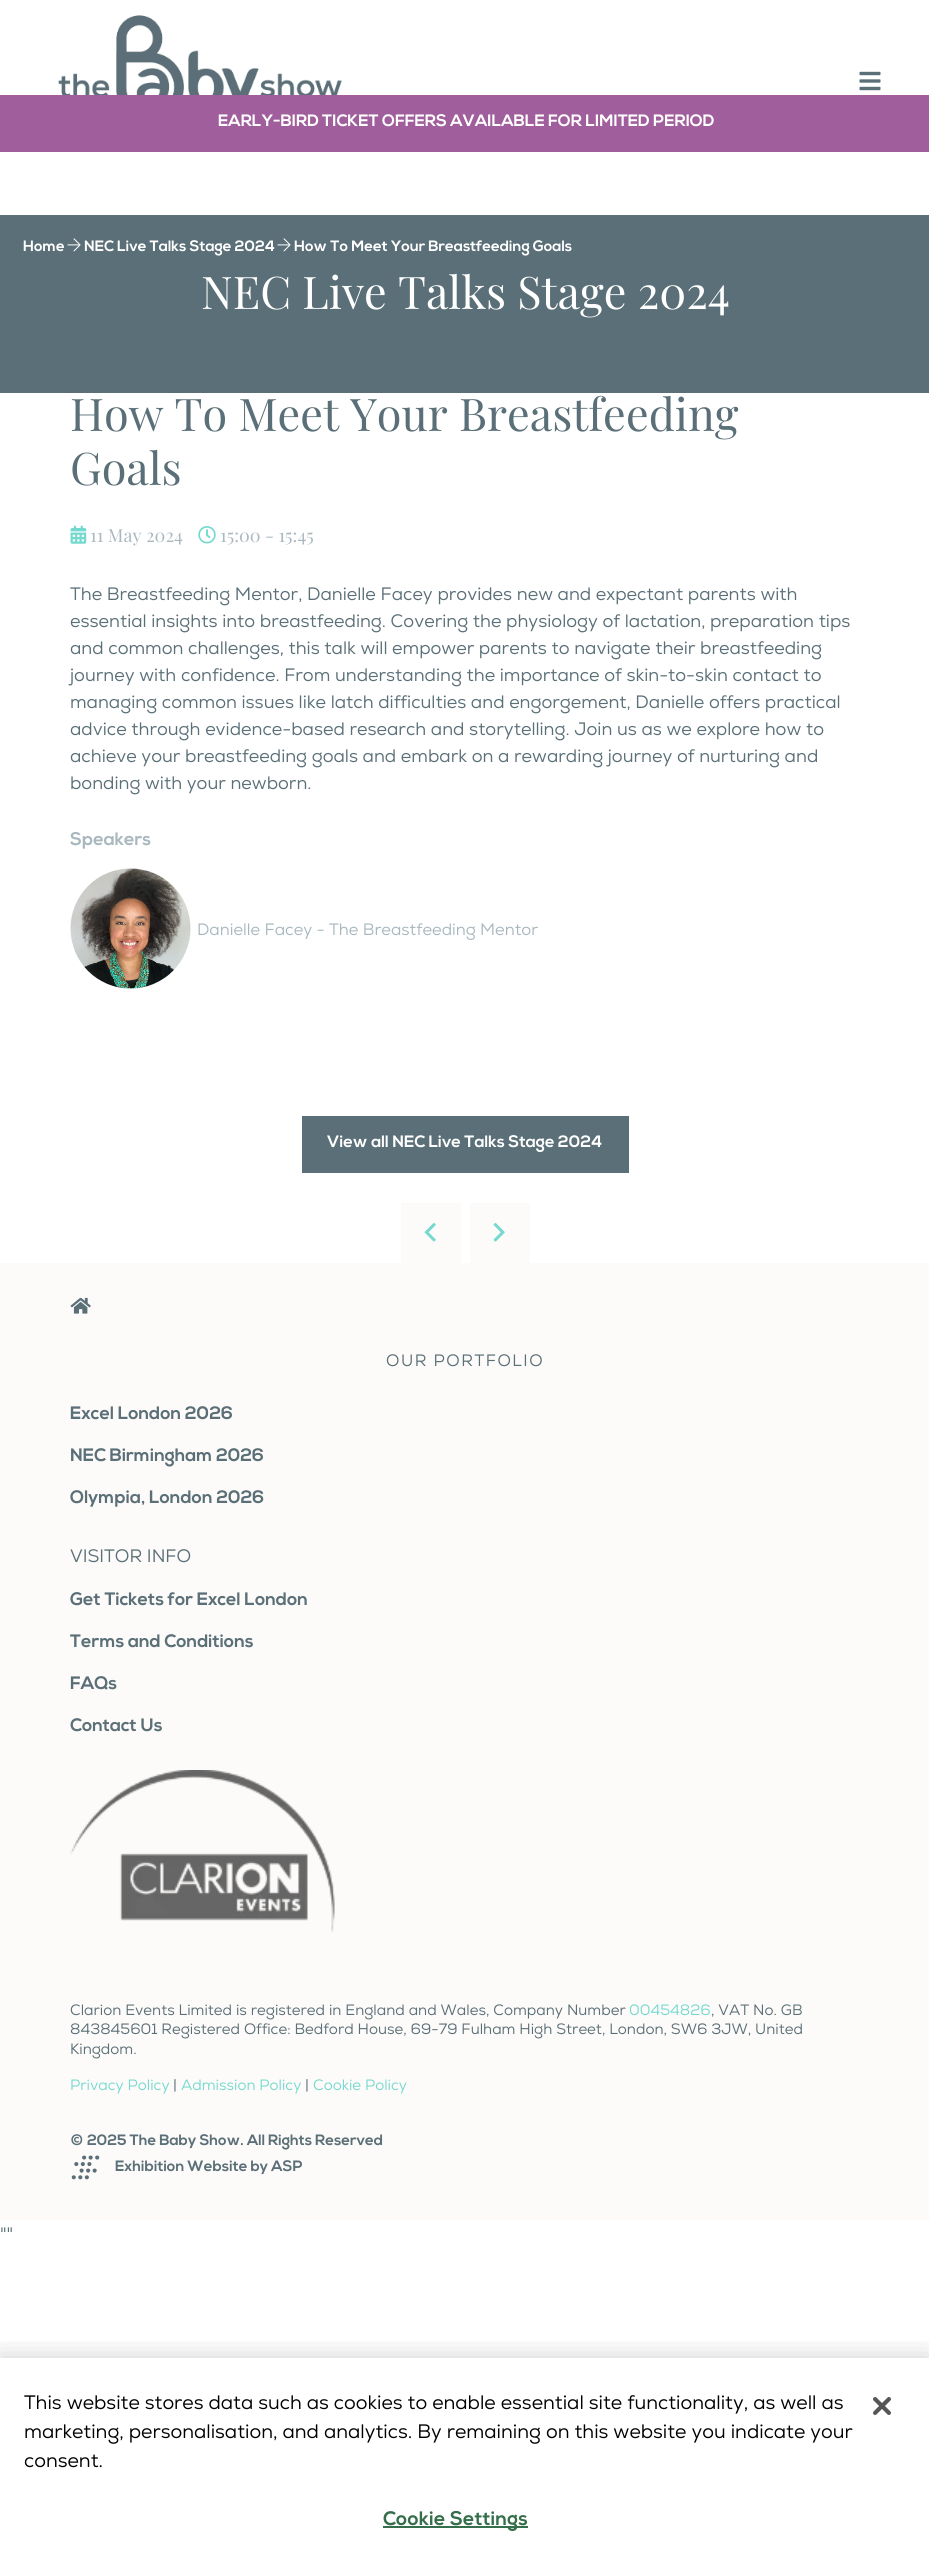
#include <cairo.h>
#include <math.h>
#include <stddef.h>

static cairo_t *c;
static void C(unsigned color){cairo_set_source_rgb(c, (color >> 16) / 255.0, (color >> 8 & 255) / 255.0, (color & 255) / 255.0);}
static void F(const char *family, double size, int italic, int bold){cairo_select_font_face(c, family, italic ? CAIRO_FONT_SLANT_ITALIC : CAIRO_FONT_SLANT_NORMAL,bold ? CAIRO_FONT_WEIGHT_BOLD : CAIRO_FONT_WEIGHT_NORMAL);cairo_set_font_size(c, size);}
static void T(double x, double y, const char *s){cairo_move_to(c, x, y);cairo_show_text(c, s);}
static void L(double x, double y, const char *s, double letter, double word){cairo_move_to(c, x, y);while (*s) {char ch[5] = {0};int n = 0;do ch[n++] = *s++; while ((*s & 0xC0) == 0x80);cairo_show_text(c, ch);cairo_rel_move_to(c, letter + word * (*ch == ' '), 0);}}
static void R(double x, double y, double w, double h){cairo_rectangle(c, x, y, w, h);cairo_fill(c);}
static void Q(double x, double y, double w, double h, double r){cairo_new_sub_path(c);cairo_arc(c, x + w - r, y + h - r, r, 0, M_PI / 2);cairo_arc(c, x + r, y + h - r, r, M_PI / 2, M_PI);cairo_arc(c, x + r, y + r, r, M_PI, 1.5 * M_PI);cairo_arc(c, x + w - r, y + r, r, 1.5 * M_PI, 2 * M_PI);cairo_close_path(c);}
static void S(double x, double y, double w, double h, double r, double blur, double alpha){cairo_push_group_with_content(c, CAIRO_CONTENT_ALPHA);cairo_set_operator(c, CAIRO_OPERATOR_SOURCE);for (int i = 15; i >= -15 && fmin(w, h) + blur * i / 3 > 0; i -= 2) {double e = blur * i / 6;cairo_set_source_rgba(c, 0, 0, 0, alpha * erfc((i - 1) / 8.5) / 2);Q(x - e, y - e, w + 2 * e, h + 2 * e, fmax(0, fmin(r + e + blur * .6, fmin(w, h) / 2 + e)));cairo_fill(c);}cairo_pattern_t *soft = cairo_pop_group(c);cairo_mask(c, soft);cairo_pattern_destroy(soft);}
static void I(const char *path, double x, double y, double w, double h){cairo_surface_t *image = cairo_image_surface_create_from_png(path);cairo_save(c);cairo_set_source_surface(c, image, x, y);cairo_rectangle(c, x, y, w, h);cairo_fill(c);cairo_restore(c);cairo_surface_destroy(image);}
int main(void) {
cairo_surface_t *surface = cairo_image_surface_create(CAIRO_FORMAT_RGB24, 929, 2568);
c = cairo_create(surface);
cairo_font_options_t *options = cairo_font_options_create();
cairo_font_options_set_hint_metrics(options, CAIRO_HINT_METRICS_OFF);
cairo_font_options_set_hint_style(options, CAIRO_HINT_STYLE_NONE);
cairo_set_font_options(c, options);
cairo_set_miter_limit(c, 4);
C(0xffffff);
cairo_paint(c);
I("1.png",58,15,289,80);
I("2.png",859,71,22,20);
C(0xa15e9c);
R(0,95,929,57);
F("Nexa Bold",16.5,0,1);
C(0xffffff);
T(218,126,"EARLY-BIRD TICKET OFFERS AVAILABLE FOR LIMITED PERIOD");
C(0x5a6f77);
R(0,215,929,178);
F("Nexa Bold",15,0,1);
C(0xffffff);
T(23,251,"Home");
I("3.png",67,238,14,14);
T(84,251,"NEC Live Talks Stage 2024");
I("3.png",277,238,14,14);
T(294,251,"How To Meet Your Breastfeeding Goals");
F("Playfair Display",45,0,0);
T(201,309,"NEC Live Talks Stage 2024");
C(0x5a6f77);
T(70,431,"How To Meet Your Breastfeeding");
T(70,485,"Goals");
I("4.png",70,525,17,19);
F("Playfair Display",18,0,0);
C(0xa9b8be);
T(90,542,"11 May 2024");
I("5.png",198,526,18,18);
T(220,542,"15:00 - 15:45");
F("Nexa",18,0,0);
C(0x5a6f77);
T(70,600,"The Breastfeeding Mentor, Danielle Facey provides new and expectant parents with");
T(70,627,"essential insights into breastfeeding. Covering the physiology of lactation, preparation tips");
T(70,654,"and common challenges, this talk will empower parents to navigate their breastfeeding");
T(70,681,"journey with confidence. From understanding the importance of skin-to-skin contact to");
T(70,708,"managing common issues like latch difficulties and engorgement, Danielle offers practical");
T(70,735,"advice through evidence-based research and storytelling. Join us as we explore how to");
T(70,762,"achieve your breastfeeding goals and embark on a rewarding journey of nurturing and");
T(70,789,"bonding with your newborn.");
F("Nexa Bold",18,0,1);
C(0xa9b8be);
T(70,845,"Speakers");
I("6.png",70,868,121,121);
F("Nexa",16.5,0,0);
T(197,935,"Danielle Facey - The Breastfeeding Mentor");
C(0x5a6f77);
R(302,1116,327,57);
F("Nexa Bold",16.5,0,1);
C(0xffffff);
T(327,1147,"View all NEC Live Talks Stage 2024");
C(0xfdfbf9);
R(401,1203,60,60);
I("7.png",424,1222,12,20);
R(470,1203,60,60);
I("8.png",493,1222,12,20);
R(0,1263,929,957);
I("9.png",70,1297,21,17);
F("Nexa",16.5,0,0);
C(0x5a6f77);
L(386,1366,"OUR PORTFOLIO",1.5,0);
F("Nexa Bold",18,0,1);
T(70,1419,"Excel London 2026");
T(70,1461,"NEC Birmingham 2026");
T(70,1503,"Olympia, London 2026");
F("Nexa",18,0,0);
T(70,1562,"VISITOR INFO");
F("Nexa Bold",18,0,1);
T(70,1605,"Get Tickets for Excel London");
T(70,1647,"Terms and Conditions");
T(70,1689,"FAQs");
T(70,1731,"Contact Us");
I("10.png",70,1770,265,162);
F("Nexa",15,0,0);
T(70,2015,"Clarion Events Limited is registered in England and Wales, Company Number");
C(0x75d9cf);
T(629,2015,"00454826");
C(0x5a6f77);
T(711,2015,", VAT No. GB");
T(70,2034,"843845601 Registered Office: Bedford House, 69-79 Fulham High Street, London, SW6 3JW, United");
T(70,2054,"Kingdom.");
C(0x75d9cf);
T(70,2090,"Privacy Policy");
C(0x5a6f77);
T(173,2090,"|");
C(0x75d9cf);
T(181,2090,"Admission Policy");
C(0x5a6f77);
T(305,2090,"|");
C(0x75d9cf);
T(313,2090,"Cookie Policy");
F("Nexa Bold",15,0,1);
C(0x5a6f77);
T(70,2145,"© 2025 The Baby Show. All Rights Reserved");
I("11.png",71,2155,29,25);
T(115,2171,"Exhibition Website by ASP");
F("Nexa",18,0,0);
T(0,2240,"\"\"");
cairo_save(c);
cairo_rectangle(c,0,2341,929,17);
cairo_clip(c);
C(0x000000);
S(0,2358,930,210,0,13.5,.2);
cairo_restore(c);
F("Nexa",19.5,0,0);
C(0x000000);
T(24,2409,"This website stores data such as cookies to enable essential site functionality, as well as");
T(24,2438,"marketing, personalisation, and analytics. By remaining on this website you indicate your");
T(24,2467,"consent.");
C(0x346e4a);
R(383,2526,145,2);
F("Nexa Bold",19.5,0,1);
L(383,2525,"Cookie Settings",.25,0);
I("12.png",873,2397,18,18);
cairo_surface_write_to_png(surface, "o.png");
cairo_font_options_destroy(options);
cairo_destroy(c);
cairo_surface_destroy(surface);
return 0;
}
